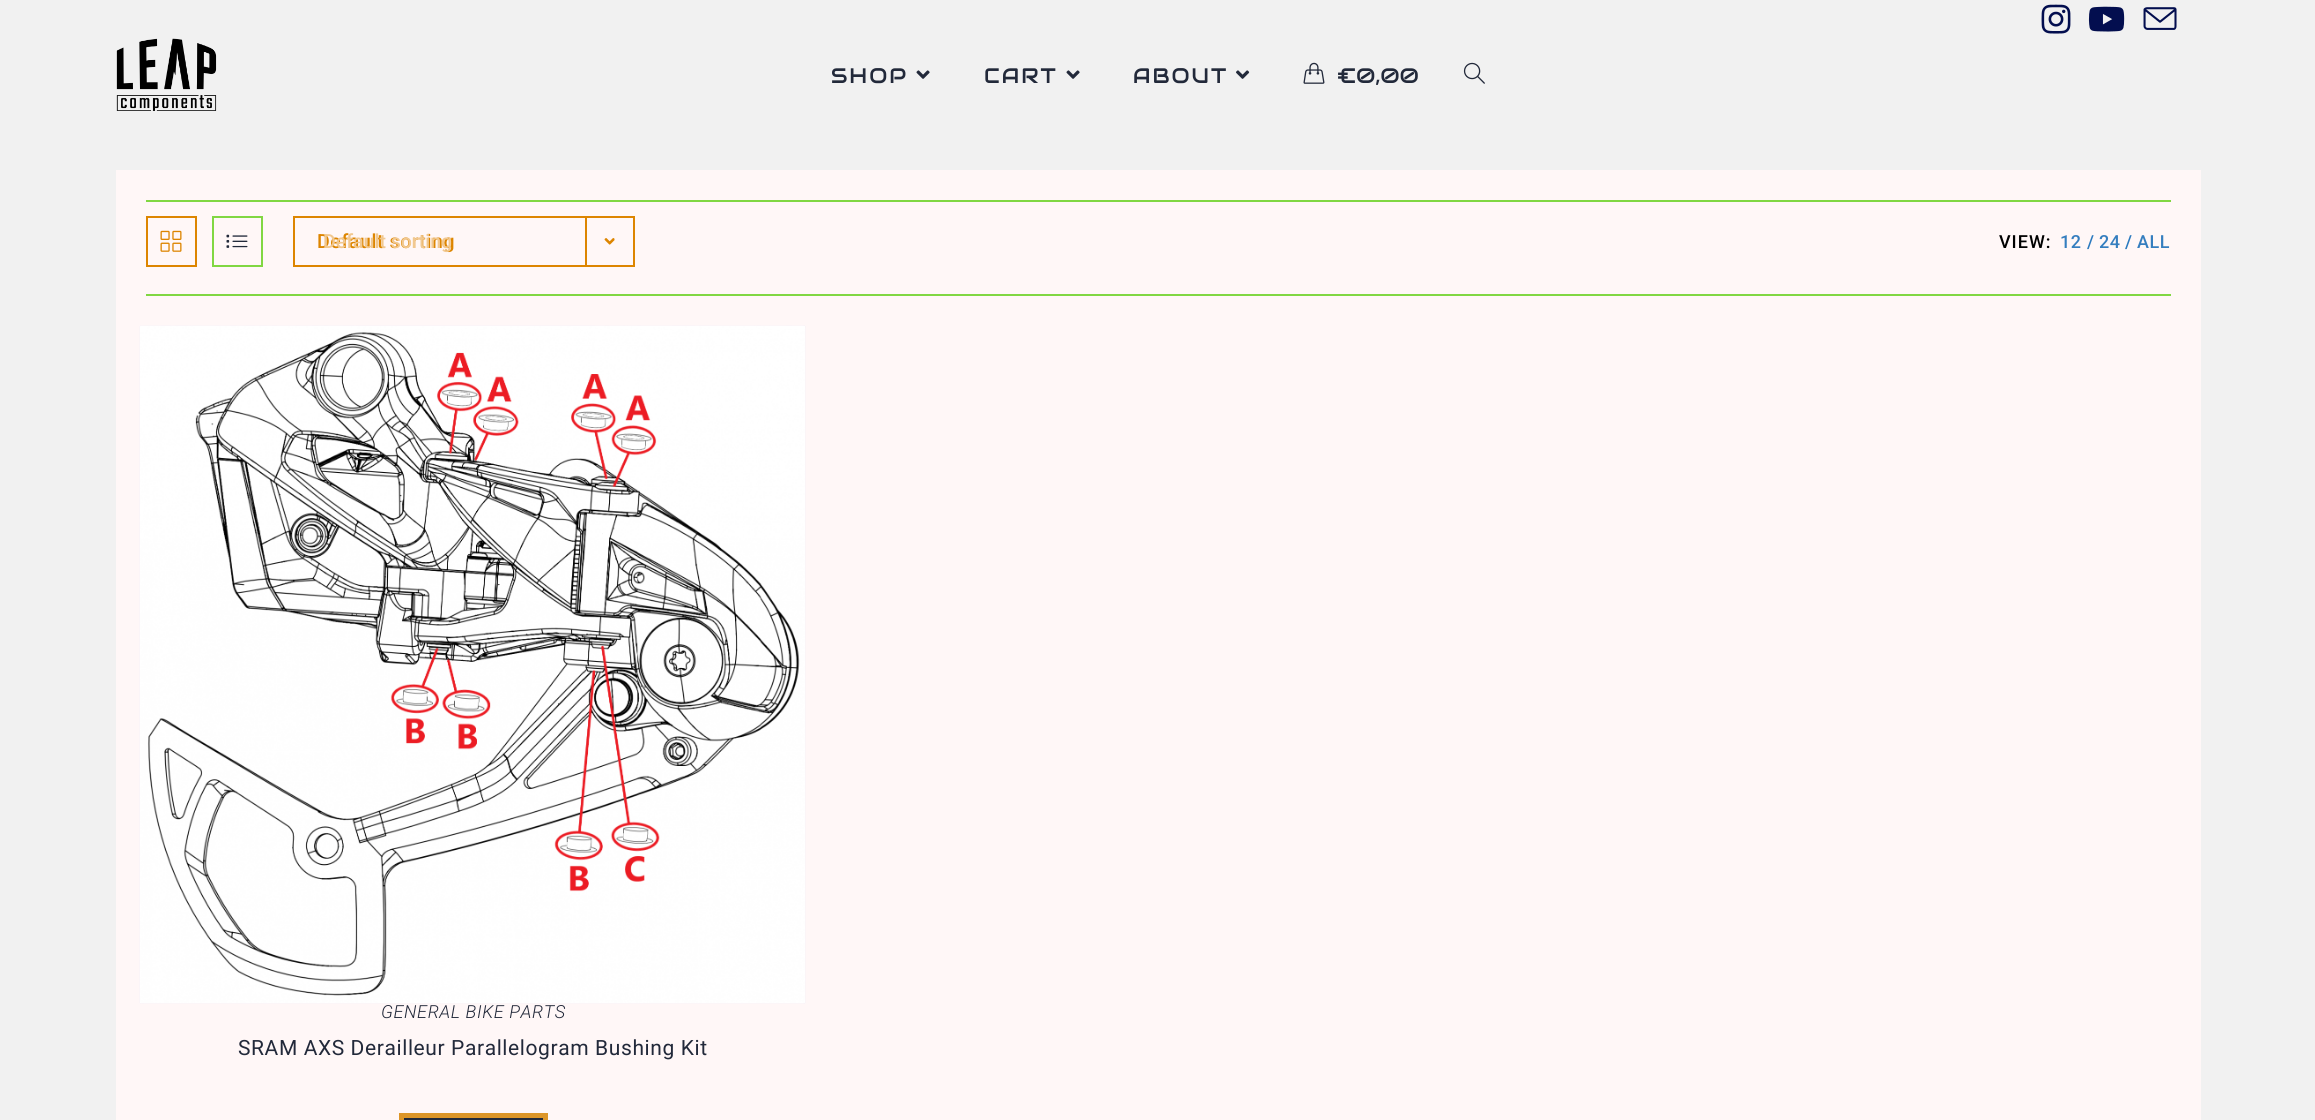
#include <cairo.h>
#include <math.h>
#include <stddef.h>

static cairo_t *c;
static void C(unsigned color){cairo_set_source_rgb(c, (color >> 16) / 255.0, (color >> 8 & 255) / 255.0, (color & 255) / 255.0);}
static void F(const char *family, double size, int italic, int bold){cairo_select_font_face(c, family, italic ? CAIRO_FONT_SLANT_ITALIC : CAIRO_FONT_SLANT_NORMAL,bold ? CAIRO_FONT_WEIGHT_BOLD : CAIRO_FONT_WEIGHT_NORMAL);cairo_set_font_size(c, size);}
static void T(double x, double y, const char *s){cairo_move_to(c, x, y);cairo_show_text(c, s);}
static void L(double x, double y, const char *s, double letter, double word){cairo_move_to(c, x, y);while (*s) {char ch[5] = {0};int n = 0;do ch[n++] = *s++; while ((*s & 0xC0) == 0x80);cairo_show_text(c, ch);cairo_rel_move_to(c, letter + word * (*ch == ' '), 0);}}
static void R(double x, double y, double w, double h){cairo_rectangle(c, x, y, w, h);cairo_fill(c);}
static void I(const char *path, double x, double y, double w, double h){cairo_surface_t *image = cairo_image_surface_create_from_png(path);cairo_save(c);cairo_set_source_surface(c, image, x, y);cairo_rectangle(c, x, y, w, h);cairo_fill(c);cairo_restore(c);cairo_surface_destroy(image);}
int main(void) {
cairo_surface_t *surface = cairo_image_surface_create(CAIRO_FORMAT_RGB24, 2315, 1120);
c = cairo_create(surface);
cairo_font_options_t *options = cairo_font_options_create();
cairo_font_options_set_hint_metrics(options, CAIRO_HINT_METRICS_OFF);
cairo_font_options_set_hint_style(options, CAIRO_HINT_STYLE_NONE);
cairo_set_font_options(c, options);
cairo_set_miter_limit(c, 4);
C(0xf1f1f1);
cairo_paint(c);
I("1.png",2041,4,30,30);
I("2.png",2088,6,37,26);
I("3.png",2143,7,34,23);
I("4.png",116,38,101,73);
F("Audiowide",21,0,0);
C(0x22293a);
L(831,83,"SHOP",2,0);
I("5.png",916,70,14,9);
L(984,83,"CART",2,0);
I("5.png",1066,70,14,9);
L(1133,83,"ABOUT",2,0);
I("6.png",1236,70,14,9);
I("7.png",1303,62,22,22);
T(1337,83,"€0,00");
I("8.png",1463,62,22,22);
C(0xfff7f7);
R(116,170,2085,950);
C(0x81d742);
R(146,200,2025,2);
R(146,294,2025,2);
cairo_rectangle(c,147,217,49,49);
C(0xdd8500);
cairo_stroke(c);
I("9.png",160,230,22,22);
cairo_rectangle(c,213,217,49,49);
C(0x81d742);
cairo_stroke(c);
I("10.png",226,234,22,14);
cairo_rectangle(c,294,217,340,49);
C(0xdd8500);
cairo_stroke(c);
F("Roboto Medium",19.5,0,0);
L(317,248,"Default sorting",.6,0);
R(585,218,2,48);
I("11.png",604,238,11,7);
cairo_new_path(c);
cairo_move_to(c,615.5,238.5);
cairo_line_to(c,621.5,244.5);
cairo_line_to(c,627.5,238.5);
C(0xfff7f7);
cairo_set_line_width(c,3);
cairo_stroke(c);
C(0xf1c890);
T(323,248,"Default sorting");
F("Roboto Medium",18,0,0);
C(0x000000);
L(1999,248,"VIEW:",1,0);
C(0x357ebf);
L(2060,248,"12",.6,0);
C(0x2b7abf);
L(2087,248,"/",.6,0);
C(0x357ebf);
L(2099,248,"24",.6,0);
C(0x2b7abf);
L(2125,248,"/",.6,0);
C(0x357ebf);
L(2137,248,"ALL",.6,0);
I("12.png",139,325,667,679);
I("13.png",140,326,665,677);
F("Roboto Light",18,1,0);
C(0x22293a);
L(381,1018,"GENERAL BIKE PARTS",.6,0);
F("Roboto",21,0,0);
L(238,1055,"SRAM AXS Derailleur Parallelogram Bushing Kit",.6,0);
cairo_rectangle(c,401.5,1115.5,144,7);
cairo_fill_preserve(c);
C(0xdd9527);
cairo_set_line_width(c,5);
cairo_stroke(c);
cairo_surface_write_to_png(surface, "o.png");
cairo_font_options_destroy(options);
cairo_destroy(c);
cairo_surface_destroy(surface);
return 0;
}
